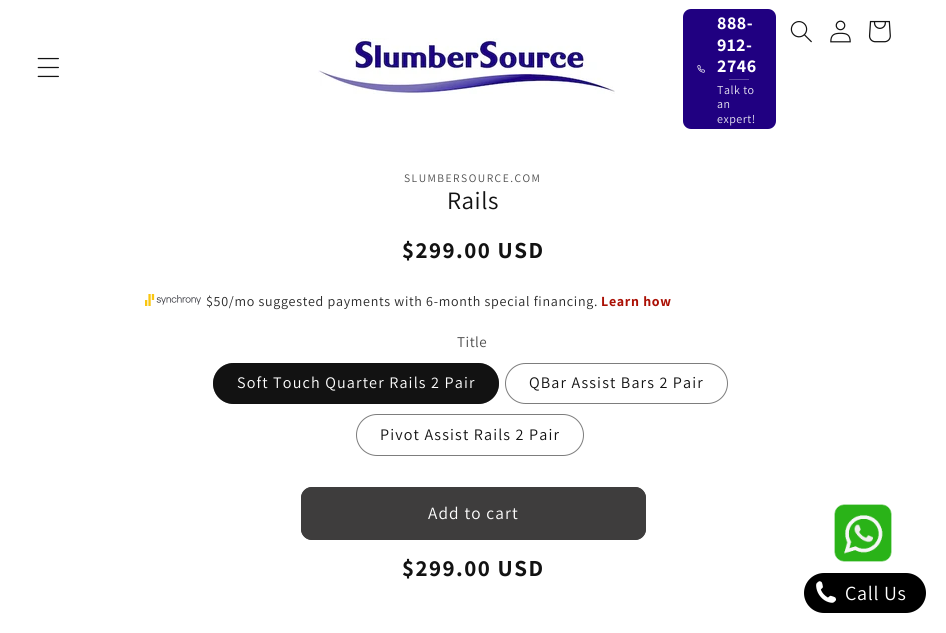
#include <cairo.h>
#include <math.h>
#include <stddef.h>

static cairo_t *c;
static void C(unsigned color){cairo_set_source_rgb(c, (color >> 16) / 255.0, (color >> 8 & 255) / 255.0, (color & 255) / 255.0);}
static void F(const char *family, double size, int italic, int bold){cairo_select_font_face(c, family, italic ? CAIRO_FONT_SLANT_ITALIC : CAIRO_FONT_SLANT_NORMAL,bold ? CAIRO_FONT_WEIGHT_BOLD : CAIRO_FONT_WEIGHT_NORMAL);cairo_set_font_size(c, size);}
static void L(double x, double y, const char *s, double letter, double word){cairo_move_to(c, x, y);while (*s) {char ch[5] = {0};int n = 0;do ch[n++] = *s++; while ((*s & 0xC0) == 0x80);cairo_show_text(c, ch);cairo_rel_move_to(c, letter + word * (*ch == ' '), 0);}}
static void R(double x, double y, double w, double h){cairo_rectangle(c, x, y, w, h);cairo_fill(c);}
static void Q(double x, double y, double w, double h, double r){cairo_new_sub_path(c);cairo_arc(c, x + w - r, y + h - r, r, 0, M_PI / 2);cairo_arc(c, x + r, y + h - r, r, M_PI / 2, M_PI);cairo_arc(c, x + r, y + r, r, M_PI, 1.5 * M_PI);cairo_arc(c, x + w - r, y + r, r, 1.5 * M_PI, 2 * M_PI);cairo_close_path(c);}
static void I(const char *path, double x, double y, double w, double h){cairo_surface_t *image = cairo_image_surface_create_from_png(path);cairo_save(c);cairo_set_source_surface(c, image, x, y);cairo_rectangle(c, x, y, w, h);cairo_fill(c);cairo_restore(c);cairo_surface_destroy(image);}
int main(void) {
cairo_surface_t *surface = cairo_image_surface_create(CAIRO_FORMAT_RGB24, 946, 633);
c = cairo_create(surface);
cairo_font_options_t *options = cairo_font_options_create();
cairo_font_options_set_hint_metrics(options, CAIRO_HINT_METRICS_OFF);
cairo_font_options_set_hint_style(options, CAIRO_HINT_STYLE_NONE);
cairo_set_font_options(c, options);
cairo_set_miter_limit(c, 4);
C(0xffffff);
cairo_paint(c);
I("1.png",37,57,22,21);
I("2.png",318,38,297,56);
C(0x200081);
Q(684,10,91,118,7);
cairo_fill_preserve(c);
cairo_stroke(c);
I("3.png",697,65,8,8);
F("Assistant",18,0,1);
C(0xffffff);
L(717,29,"888-",.5,0);
L(717,51,"912-",.5,0);
L(717,72,"2746",.5,0);
C(0x5c45a3);
R(729,79,20,1);
F("Assistant",12,0,0);
C(0xe9e6f2);
L(717,94,"Talk to",.5,0);
L(717,108,"an",.5,0);
L(717,123,"expert!",.5,0);
I("4.png",790,21,22,22);
I("5.png",830,20,21,23);
I("6.png",868,20,23,23);
F("Assistant",11.5,0,0);
C(0x4d4d4d);
L(404,182,"SLUMBERSOURCE.COM",1.5,0);
F("Assistant",25,0,0);
C(0x121212);
L(447,209,"Rails",.5,0);
F("Assistant",23,0,1);
L(402,258,"$299.00 USD",1.5,0);
I("7.png",145,294,56,12);
F("Assistant",14,0,0);
C(0x282828);
L(206,306,"$50/mo suggested payments with 6-month special financing.",.7,0);
F("Assistant",14,0,1);
C(0xab1005);
L(601,306,"Learn how",.7,0);
F("Assistant",15,0,0);
C(0x4d4d4d);
L(457,347,"Title",.5,0);
C(0x121212);
Q(213,363,286,41,20.5);
cairo_fill(c);
Q(213.5,363.5,285,40,20);
cairo_set_source_rgba(c,0.071,0.071,0.071,0.55);
cairo_set_line_width(c,1);
cairo_stroke(c);
F("Assistant",16.1,0,0);
C(0xffffff);
L(237,388,"Soft Touch Quarter Rails 2 Pair",1.15,0);
Q(505.5,363.5,222,40,20);
C(0x7d7d7d);
cairo_stroke(c);
C(0x121212);
L(529,388,"QBar Assist Bars 2 Pair",1.15,0);
Q(356.5,414.5,227,41,20.5);
C(0x7d7d7d);
cairo_stroke(c);
C(0x121212);
L(380,440,"Pivot Assist Rails 2 Pair",1.15,0);
C(0x3e3d3d);
Q(301,487,345,53,11);
cairo_fill(c);
Q(301.5,487.5,344,52,10.5);
cairo_stroke(c);
F("Assistant",17.25,0,0);
C(0xffffff);
L(428,519,"Add to cart",1.15,0);
F("Assistant",23,0,1);
C(0x121212);
L(402,576,"$299.00 USD",1.5,0);
I("8.png",834,504,58,58);
C(0x000000);
Q(804,573,122,40,20);
cairo_fill(c);
I("9.png",816,581,20,22);
F("Assistant",20,0,0);
C(0xffffff);
L(845,600,"Call Us",.7,0);
cairo_surface_write_to_png(surface, "o.png");
cairo_font_options_destroy(options);
cairo_destroy(c);
cairo_surface_destroy(surface);
return 0;
}
